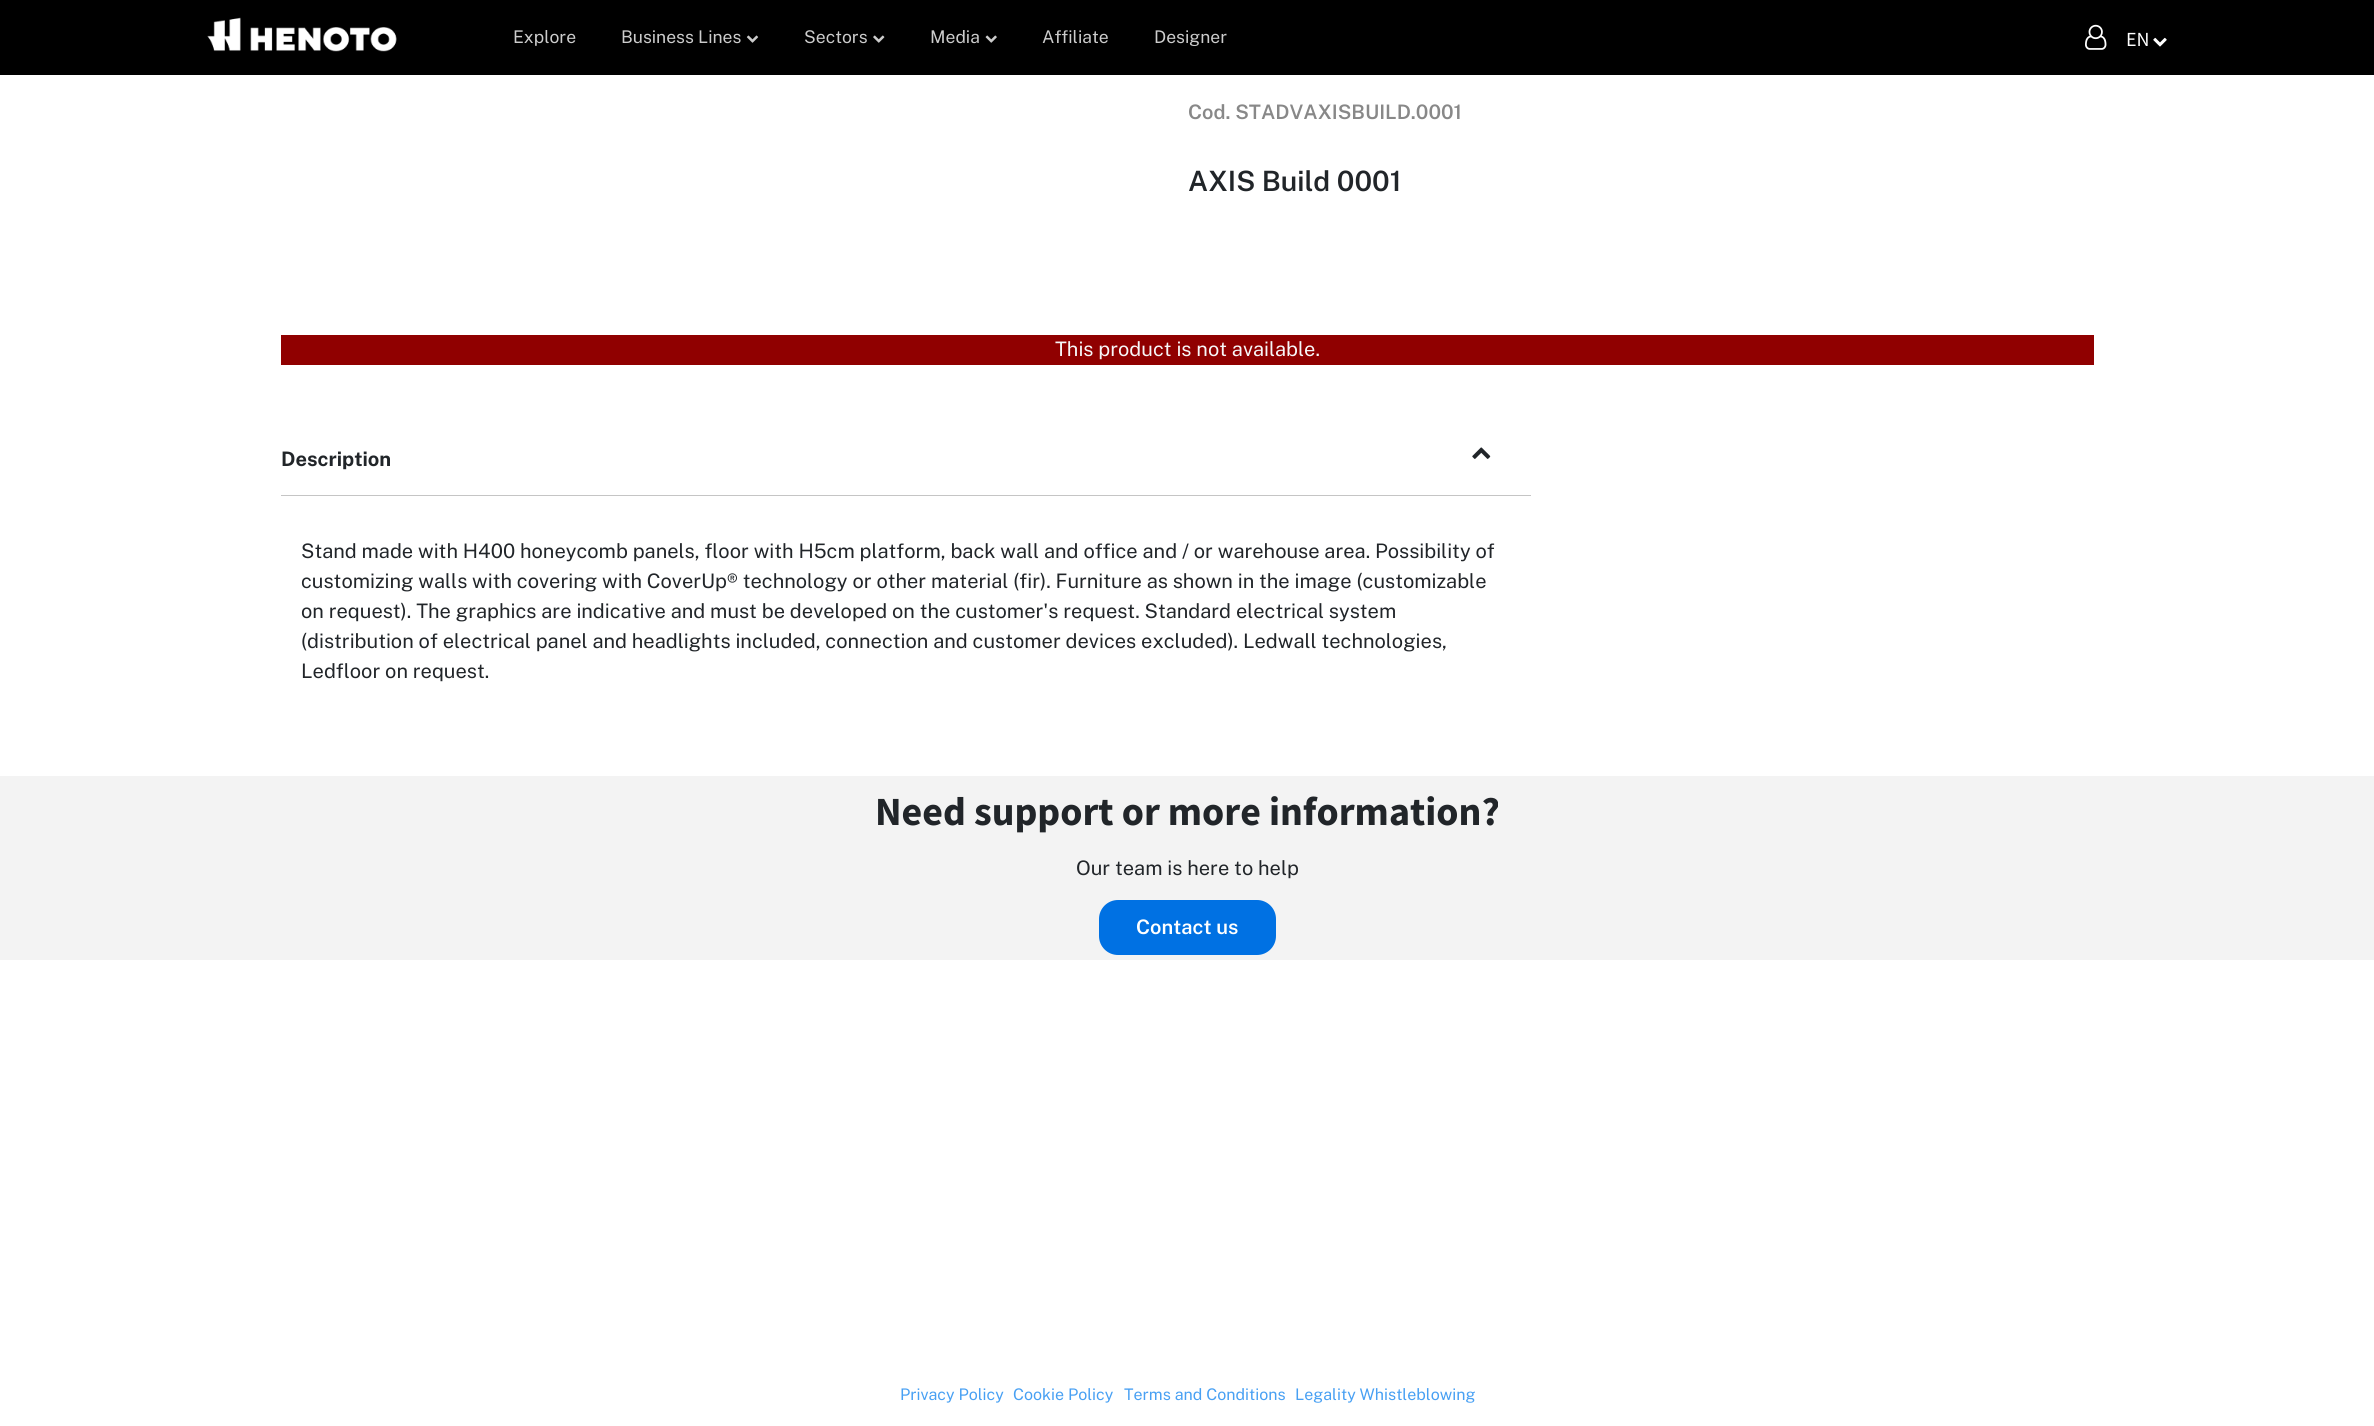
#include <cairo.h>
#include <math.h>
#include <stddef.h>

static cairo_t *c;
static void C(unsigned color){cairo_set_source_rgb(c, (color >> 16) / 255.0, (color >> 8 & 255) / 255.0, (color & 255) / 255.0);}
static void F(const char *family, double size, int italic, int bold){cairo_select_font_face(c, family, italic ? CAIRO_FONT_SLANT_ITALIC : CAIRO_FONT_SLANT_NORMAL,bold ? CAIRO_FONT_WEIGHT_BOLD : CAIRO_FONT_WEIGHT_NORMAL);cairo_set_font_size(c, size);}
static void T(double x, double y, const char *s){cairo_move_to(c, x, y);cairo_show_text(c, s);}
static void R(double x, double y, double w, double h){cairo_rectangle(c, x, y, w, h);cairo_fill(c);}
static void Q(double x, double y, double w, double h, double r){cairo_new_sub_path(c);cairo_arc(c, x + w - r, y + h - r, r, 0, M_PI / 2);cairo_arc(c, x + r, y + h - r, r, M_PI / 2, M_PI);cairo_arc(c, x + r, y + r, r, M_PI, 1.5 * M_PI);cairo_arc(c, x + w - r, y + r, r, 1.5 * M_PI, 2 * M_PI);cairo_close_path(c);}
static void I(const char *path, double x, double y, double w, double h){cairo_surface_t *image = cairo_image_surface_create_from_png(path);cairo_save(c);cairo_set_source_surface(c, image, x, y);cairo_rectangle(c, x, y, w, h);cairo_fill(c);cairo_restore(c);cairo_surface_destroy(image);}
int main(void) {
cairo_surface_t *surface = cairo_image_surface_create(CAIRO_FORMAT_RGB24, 2374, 1426);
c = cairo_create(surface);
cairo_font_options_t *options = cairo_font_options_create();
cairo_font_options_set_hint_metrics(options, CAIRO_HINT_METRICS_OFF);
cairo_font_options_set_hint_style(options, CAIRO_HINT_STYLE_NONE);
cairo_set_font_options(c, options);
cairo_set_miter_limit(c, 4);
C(0xffffff);
cairo_paint(c);
C(0x000000);
R(0,0,2374,75);
I("1.png",207,17,190,35);
F("Public Sans",17.5,0,0);
C(0xcccccc);
T(513,43,"Explore");
T(621,43,"Business Lines");
I("2.png",746,35,13,8);
T(804,43,"Sectors");
I("3.png",873,35,12,8);
T(930,43,"Media");
I("4.png",985,35,12,8);
T(1042,43,"Affiliate");
T(1154,43,"Designer");
I("5.png",2085,24,22,26);
F("Source Sans Pro",20,0,0);
C(0xffffff);
T(2126,46,"EN");
I("6.png",2153,37,14,10);
F("Public Sans SemiBold",20,0,0);
C(0x888888);
T(1188,119,"Cod. STADVAXISBUILD.0001");
F("Public Sans SemiBold",28,0,0);
C(0x212529);
T(1188,191,"AXIS Build 0001");
C(0x900000);
R(281,335,1813,30);
F("Public Sans",20,0,0);
C(0xf7f7f8);
T(1055,356,"This product is not available.");
C(0xc5c5c5);
R(281,495,1250,1);
F("Public Sans",20,0,1);
C(0x212529);
T(281,466,"Description");
I("7.png",1472,447,19,12);
F("Public Sans",20,0,0);
T(301,558,"Stand made with H400 honeycomb panels, floor with H5cm platform, back wall and office and / or warehouse area. Possibility of");
T(301,588,"customizing walls with covering with CoverUp® technology or other material (fir). Furniture as shown in the image (customizable");
T(301,618,"on request). The graphics are indicative and must be developed on the customer's request. Standard electrical system");
T(301,648,"(distribution of electrical panel and headlights included, connection and customer devices excluded). Ledwall technologies,");
T(301,678,"Ledfloor on request.");
C(0xf3f3f3);
R(0,776,2374,184);
F("Source Sans Pro",40,0,1);
C(0x212529);
T(875,825,"Need support or more information?");
F("Public Sans",20,0,0);
T(1076,875,"Our team is here to help");
C(0x0071e3);
Q(1099,900,177,55,19);
cairo_fill(c);
F("Public Sans SemiBold",20,0,0);
C(0xffffff);
T(1136,934,"Contact us");
F("Public Sans",16,0,0);
C(0x48a0f3);
T(900,1400,"Privacy Policy");
T(1013,1400,"Cookie Policy");
T(1124,1400,"Terms and Conditions");
T(1295,1400,"Legality Whistleblowing");
cairo_surface_write_to_png(surface, "o.png");
cairo_font_options_destroy(options);
cairo_destroy(c);
cairo_surface_destroy(surface);
return 0;
}
